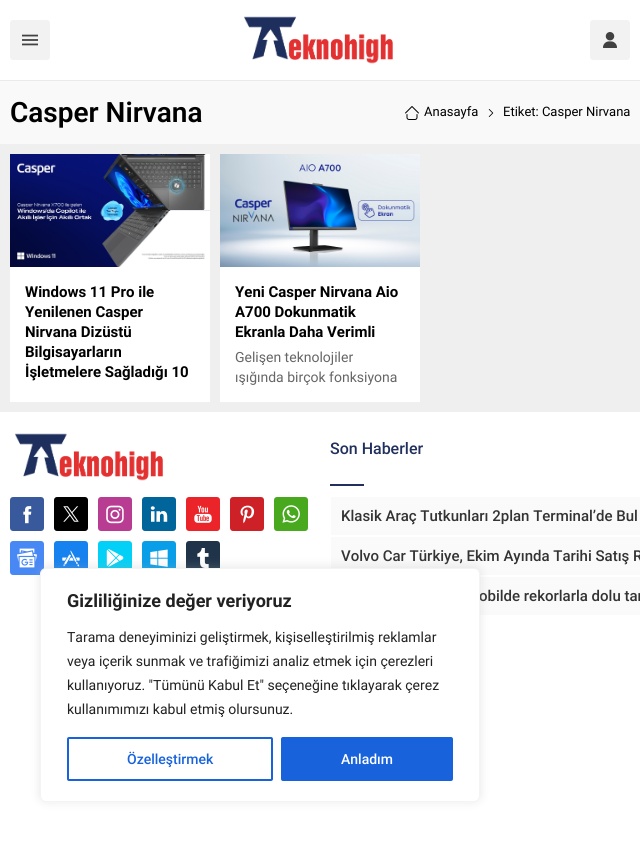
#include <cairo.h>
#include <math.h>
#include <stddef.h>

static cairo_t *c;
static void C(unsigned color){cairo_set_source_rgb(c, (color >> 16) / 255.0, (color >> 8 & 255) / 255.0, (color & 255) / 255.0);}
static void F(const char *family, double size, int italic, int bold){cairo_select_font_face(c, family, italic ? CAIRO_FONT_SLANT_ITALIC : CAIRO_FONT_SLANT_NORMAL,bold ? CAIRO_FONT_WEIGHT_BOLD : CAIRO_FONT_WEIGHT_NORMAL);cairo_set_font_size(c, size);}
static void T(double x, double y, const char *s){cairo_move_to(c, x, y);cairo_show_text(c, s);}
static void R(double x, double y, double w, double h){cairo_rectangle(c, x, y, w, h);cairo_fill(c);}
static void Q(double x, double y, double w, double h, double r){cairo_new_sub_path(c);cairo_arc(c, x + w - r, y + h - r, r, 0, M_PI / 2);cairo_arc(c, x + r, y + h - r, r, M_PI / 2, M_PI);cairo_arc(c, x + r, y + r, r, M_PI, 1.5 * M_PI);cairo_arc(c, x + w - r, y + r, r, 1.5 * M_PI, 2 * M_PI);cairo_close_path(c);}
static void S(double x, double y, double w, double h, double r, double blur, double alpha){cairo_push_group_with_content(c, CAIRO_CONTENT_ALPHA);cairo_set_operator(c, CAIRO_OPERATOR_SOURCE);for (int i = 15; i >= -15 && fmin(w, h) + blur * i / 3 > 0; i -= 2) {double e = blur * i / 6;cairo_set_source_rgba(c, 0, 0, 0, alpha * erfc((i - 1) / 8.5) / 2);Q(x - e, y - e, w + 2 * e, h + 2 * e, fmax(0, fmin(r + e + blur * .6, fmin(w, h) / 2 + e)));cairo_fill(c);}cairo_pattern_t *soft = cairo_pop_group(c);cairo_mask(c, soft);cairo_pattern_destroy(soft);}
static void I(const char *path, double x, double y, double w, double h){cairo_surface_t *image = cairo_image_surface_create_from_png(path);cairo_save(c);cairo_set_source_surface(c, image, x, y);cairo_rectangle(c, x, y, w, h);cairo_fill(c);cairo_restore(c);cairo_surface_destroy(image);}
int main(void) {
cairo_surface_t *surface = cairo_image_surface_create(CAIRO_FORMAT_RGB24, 640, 842);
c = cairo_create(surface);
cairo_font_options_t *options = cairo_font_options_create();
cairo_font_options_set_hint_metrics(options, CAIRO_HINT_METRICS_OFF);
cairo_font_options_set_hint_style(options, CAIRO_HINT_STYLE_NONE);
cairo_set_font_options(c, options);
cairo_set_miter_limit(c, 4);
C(0xffffff);
cairo_paint(c);
C(0xefefef);
R(0,144,640,268);
C(0xeaeaea);
R(0,80,640,1);
C(0xf2f2f2);
Q(10,20,40,40,3);
cairo_fill(c);
I("1.png",22,34,16,12);
I("2.png",244,16,149,48);
Q(590,20,40,40,3);
cairo_fill(c);
I("3.png",603,32,14,16);
C(0xf9f9f9);
R(0,81,640,63);
F("Roboto SemiBold",28,0,0);
C(0x000000);
T(10,122,"Casper Nirvana");
I("4.png",405,106,14,14);
F("Roboto",13,0,0);
T(424,116,"Anasayfa");
I("5.png",488,109,6,8);
T(503,116,"Etiket: Casper Nirvana");
C(0xffffff);
R(10,267,200,135);
I("6.png",10,154,200,113);
F("Roboto",15,0,1);
C(0x000000);
T(25,297,"Windows 11 Pro ile");
T(25,317,"Yenilenen Casper");
T(25,337,"Nirvana Dizüstü");
T(25,357,"Bilgisayarların");
T(25,377,"İşletmelere Sağladığı 10");
C(0xffffff);
R(220,267,200,135);
I("7.png",220,154,200,113);
C(0x000000);
T(235,297,"Yeni Casper Nirvana Aio");
T(235,317,"A700 Dokunmatik");
T(235,337,"Ekranla Daha Verimli");
F("Roboto",14,0,0);
C(0x666666);
T(235,362,"Gelişen teknolojiler");
T(235,382,"ışığında birçok fonksiyona");
I("8.png",15,433,148,48);
C(0x38599b);
Q(10,497,34,34,3);
cairo_fill(c);
I("9.png",23,506,9,18);
C(0x000000);
Q(54,497,34,34,3);
cairo_fill(c);
I("10.png",63,506,16,16);
C(0xb83c92);
Q(98,497,34,34,3);
cairo_fill(c);
I("11.png",106,505,18,19);
C(0x00659b);
Q(142,497,34,34,3);
cairo_fill(c);
I("12.png",150,506,18,16);
C(0xeb2429);
Q(186,497,34,34,3);
cairo_fill(c);
I("13.png",194,505,18,18);
C(0xcd2127);
Q(230,497,34,34,3);
cairo_fill(c);
I("14.png",240,505,15,19);
C(0x48a91f);
Q(274,497,34,34,3);
cairo_fill(c);
I("15.png",282,505,18,18);
C(0x4788f4);
Q(10,541,34,34,3);
cairo_fill(c);
I("16.png",17,548,20,20);
C(0x1682ef);
Q(54,541,34,34,3);
cairo_fill(c);
I("17.png",62,550,18,17);
C(0x03d0f6);
Q(98,541,34,34,3);
cairo_fill(c);
I("18.png",106,549,18,18);
C(0x089ee8);
Q(142,541,34,34,3);
cairo_fill(c);
I("19.png",150,549,18,18);
C(0x1f3349);
Q(186,541,34,34,3);
cairo_fill(c);
I("20.png",197,548,12,20);
F("Roboto Medium",16,0,0);
C(0x21305d);
T(330,454,"Son Haberler");
R(330,484,34,2);
C(0xfafafa);
R(331,497,309,38);
F("Roboto Medium",15,0,0);
C(0x333333);
T(341,521,"Klasik Araç Tutkunları 2plan Terminal’de Bul");
C(0xfafafa);
R(331,537,309,38);
C(0x333333);
T(341,561,"Volvo Car Türkiye, Ekim Ayında Tarihi Satış R");
C(0xfafafa);
R(480,577,160,38);
C(0x333333);
T(479,601,"obilde rekorlarla dolu tar");
C(0xacabab);
S(40,567,440,234,6,5,.3);
C(0xffffff);
Q(40.5,568.5,439,233,5.5);
cairo_fill_preserve(c);
C(0xf4f4f4);
cairo_set_line_width(c,1);
cairo_stroke(c);
F("Roboto",18,0,1);
C(0x212121);
T(67,607,"Gizliliğinize değer veriyoruz");
F("Roboto",14,0,0);
T(67,642,"Tarama deneyiminizi geliştirmek, kişiselleştirilmiş reklamlar");
T(67,666,"veya içerik sunmak ve trafiğimizi analiz etmek için çerezleri");
T(67,690,"kullanıyoruz. \"Tümünü Kabul Et\" seçeneğine tıklayarak çerez");
T(67,714,"kullanımımızı kabul etmiş olursunuz.");
Q(68,738,204,42,1);
C(0x1863dc);
cairo_set_line_width(c,2);
cairo_stroke(c);
F("Roboto Medium",14,0,0);
T(127,764,"Özelleştirmek");
Q(282,738,170,42,1);
cairo_fill_preserve(c);
cairo_stroke(c);
C(0xffffff);
T(341,764,"Anladım");
cairo_surface_write_to_png(surface, "o.png");
cairo_font_options_destroy(options);
cairo_destroy(c);
cairo_surface_destroy(surface);
return 0;
}
